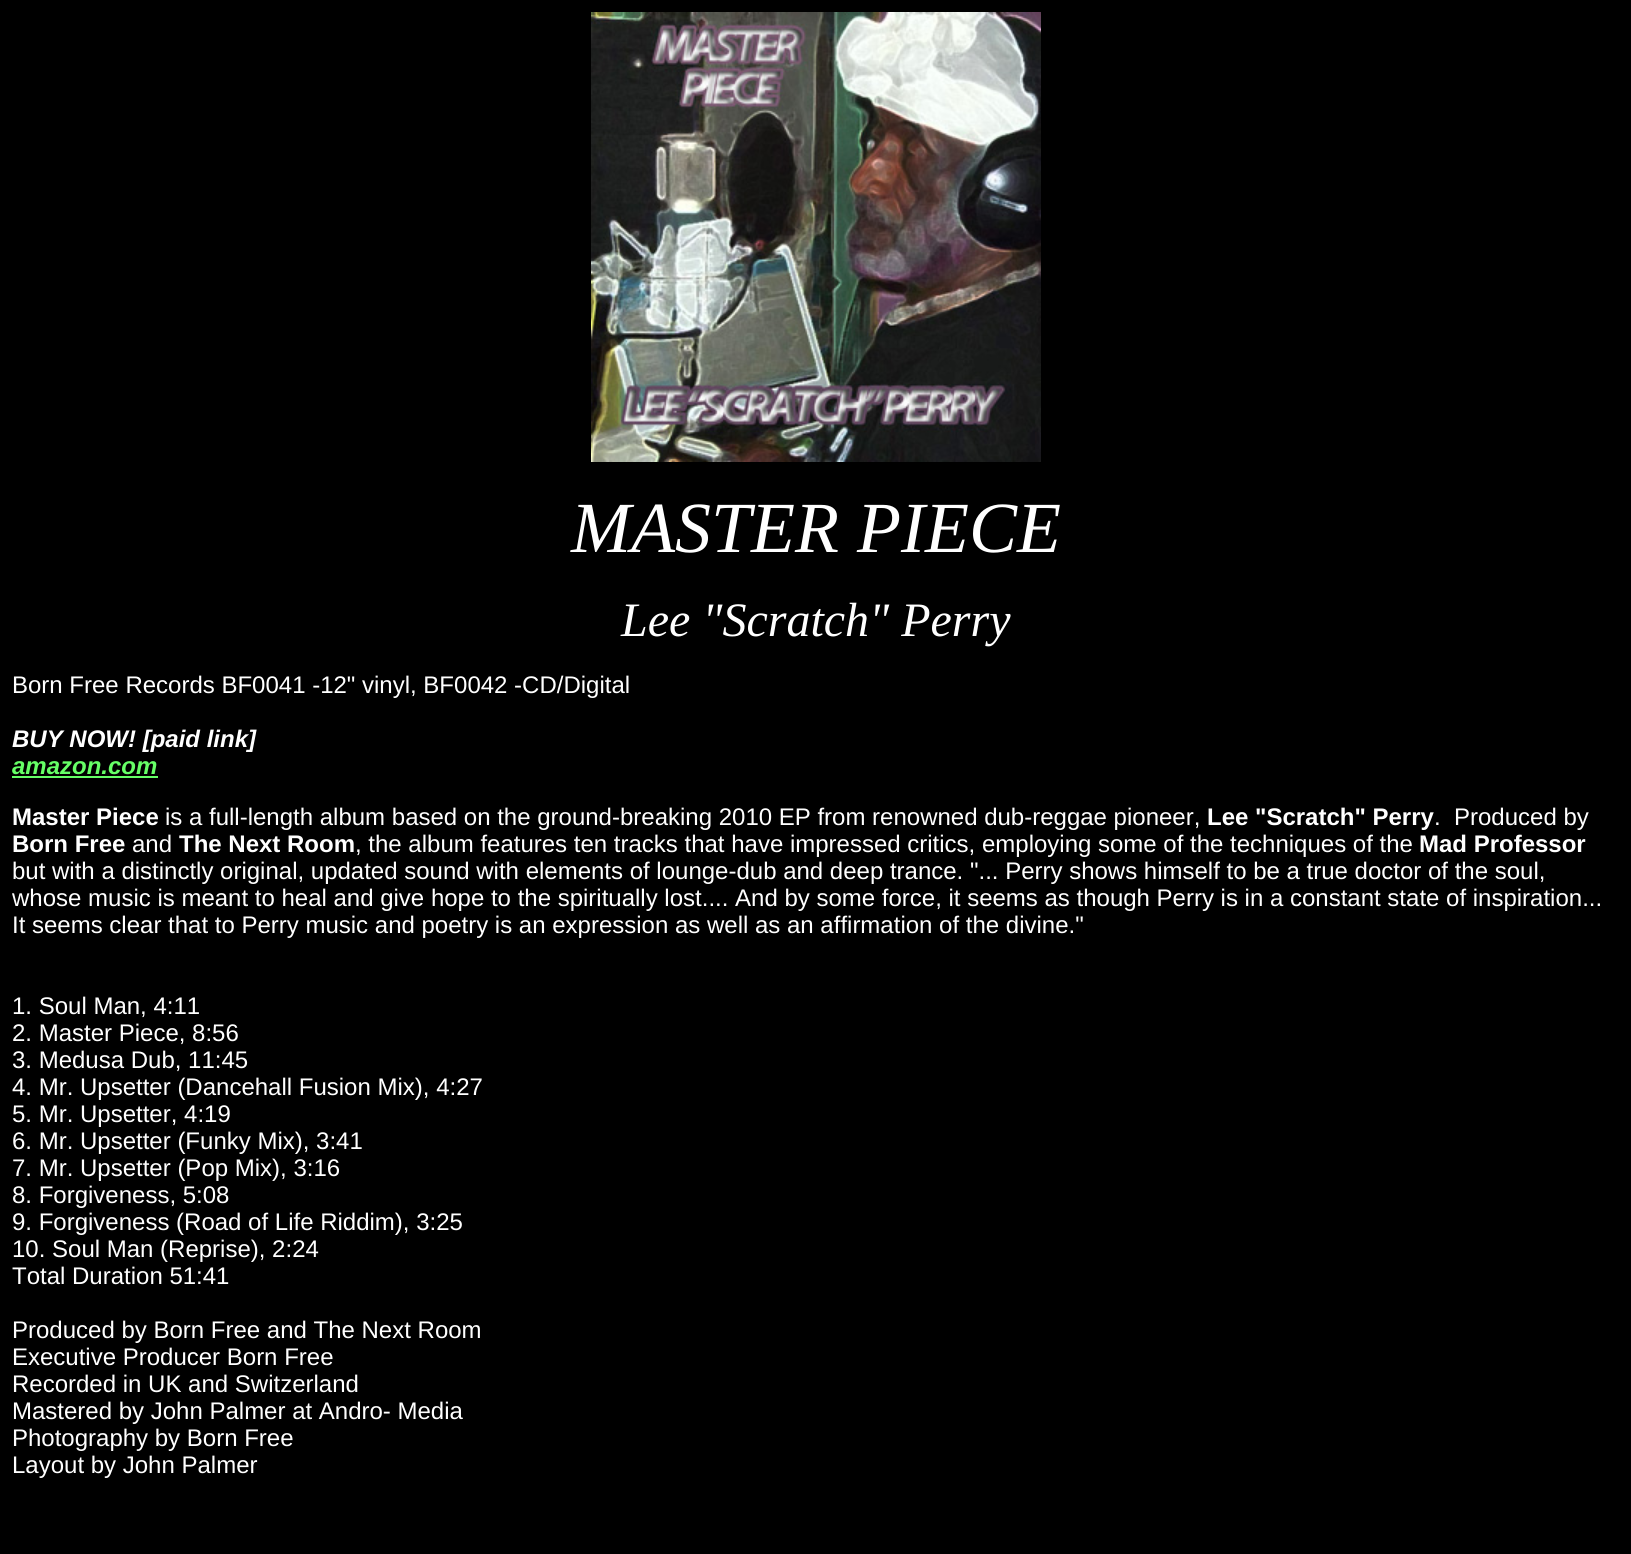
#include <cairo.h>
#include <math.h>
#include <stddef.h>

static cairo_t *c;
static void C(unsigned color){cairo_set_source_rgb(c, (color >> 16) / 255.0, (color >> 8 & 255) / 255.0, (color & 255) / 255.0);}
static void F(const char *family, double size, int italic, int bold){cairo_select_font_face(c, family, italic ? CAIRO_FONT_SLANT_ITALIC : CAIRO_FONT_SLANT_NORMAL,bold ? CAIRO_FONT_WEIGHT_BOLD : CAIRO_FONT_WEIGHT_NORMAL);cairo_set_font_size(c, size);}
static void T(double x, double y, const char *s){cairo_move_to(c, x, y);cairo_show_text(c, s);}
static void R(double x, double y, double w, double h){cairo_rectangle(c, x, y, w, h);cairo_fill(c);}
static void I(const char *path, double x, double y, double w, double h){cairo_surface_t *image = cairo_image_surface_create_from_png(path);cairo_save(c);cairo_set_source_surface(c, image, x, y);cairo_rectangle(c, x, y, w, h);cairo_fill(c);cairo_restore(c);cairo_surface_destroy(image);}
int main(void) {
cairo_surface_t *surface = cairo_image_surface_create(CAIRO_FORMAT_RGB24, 1631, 1554);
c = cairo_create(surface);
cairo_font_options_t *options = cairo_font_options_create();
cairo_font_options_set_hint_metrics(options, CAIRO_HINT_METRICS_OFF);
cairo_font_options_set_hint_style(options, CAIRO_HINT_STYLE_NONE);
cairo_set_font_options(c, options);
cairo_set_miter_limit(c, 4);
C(0x000000);
cairo_paint(c);
I("1.png",591,12,450,450);
F("Liberation Serif",72,1,0);
C(0xffffff);
T(571,552,"MASTER PIECE");
F("Liberation Serif",48,1,0);
T(621,636,"Lee \"Scratch\" Perry");
F("Liberation Sans",24,0,0);
T(12,693,"Born Free Records BF0041 -12\" vinyl, BF0042 -CD/Digital");
F("Liberation Sans",24,1,1);
T(12,747,"BUY NOW! [paid link]");
C(0x66ff66);
T(12,774,"amazon.com");
R(12,776,146,2);
F("Liberation Sans",24,0,1);
C(0xffffff);
T(12,825,"Master Piece");
F("Liberation Sans",24,0,0);
T(165,825,"is a full-length album based on the ground-breaking 2010 EP from renowned dub-reggae pioneer,");
F("Liberation Sans",24,0,1);
T(1207,825,"Lee \"Scratch\" Perry");
F("Liberation Sans",24,0,0);
T(1434,825,".");
T(1454,825,"Produced by");
F("Liberation Sans",24,0,1);
T(12,852,"Born Free");
F("Liberation Sans",24,0,0);
T(132,852,"and");
F("Liberation Sans",24,0,1);
T(179,852,"The Next Room");
F("Liberation Sans",24,0,0);
T(355,852,", the album features ten tracks that have impressed critics, employing some of the techniques of the");
F("Liberation Sans",24,0,1);
T(1419,852,"Mad Professor");
F("Liberation Sans",24,0,0);
T(12,879,"but with a distinctly original, updated sound with elements of lounge-dub and deep trance. \"... Perry shows himself to be a true doctor of the soul,");
T(12,906,"whose music is meant to heal and give hope to the spiritually lost.... And by some force, it seems as though Perry is in a constant state of inspiration...");
T(12,933,"It seems clear that to Perry music and poetry is an expression as well as an affirmation of the divine.\"");
T(12,1014,"1. Soul Man, 4:11");
T(12,1041,"2. Master Piece, 8:56");
T(12,1068,"3. Medusa Dub, 11:45");
T(12,1095,"4. Mr. Upsetter (Dancehall Fusion Mix), 4:27");
T(12,1122,"5. Mr. Upsetter, 4:19");
T(12,1149,"6. Mr. Upsetter (Funky Mix), 3:41");
T(12,1176,"7. Mr. Upsetter (Pop Mix), 3:16");
T(12,1203,"8. Forgiveness, 5:08");
T(12,1230,"9. Forgiveness (Road of Life Riddim), 3:25");
T(12,1257,"10. Soul Man (Reprise), 2:24");
T(12,1284,"Total Duration 51:41");
T(12,1338,"Produced by Born Free and The Next Room");
T(12,1365,"Executive Producer Born Free");
T(12,1392,"Recorded in UK and Switzerland");
T(12,1419,"Mastered by John Palmer at Andro- Media");
T(12,1446,"Photography by Born Free");
T(12,1473,"Layout by John Palmer");
cairo_surface_write_to_png(surface, "o.png");
cairo_font_options_destroy(options);
cairo_destroy(c);
cairo_surface_destroy(surface);
return 0;
}
